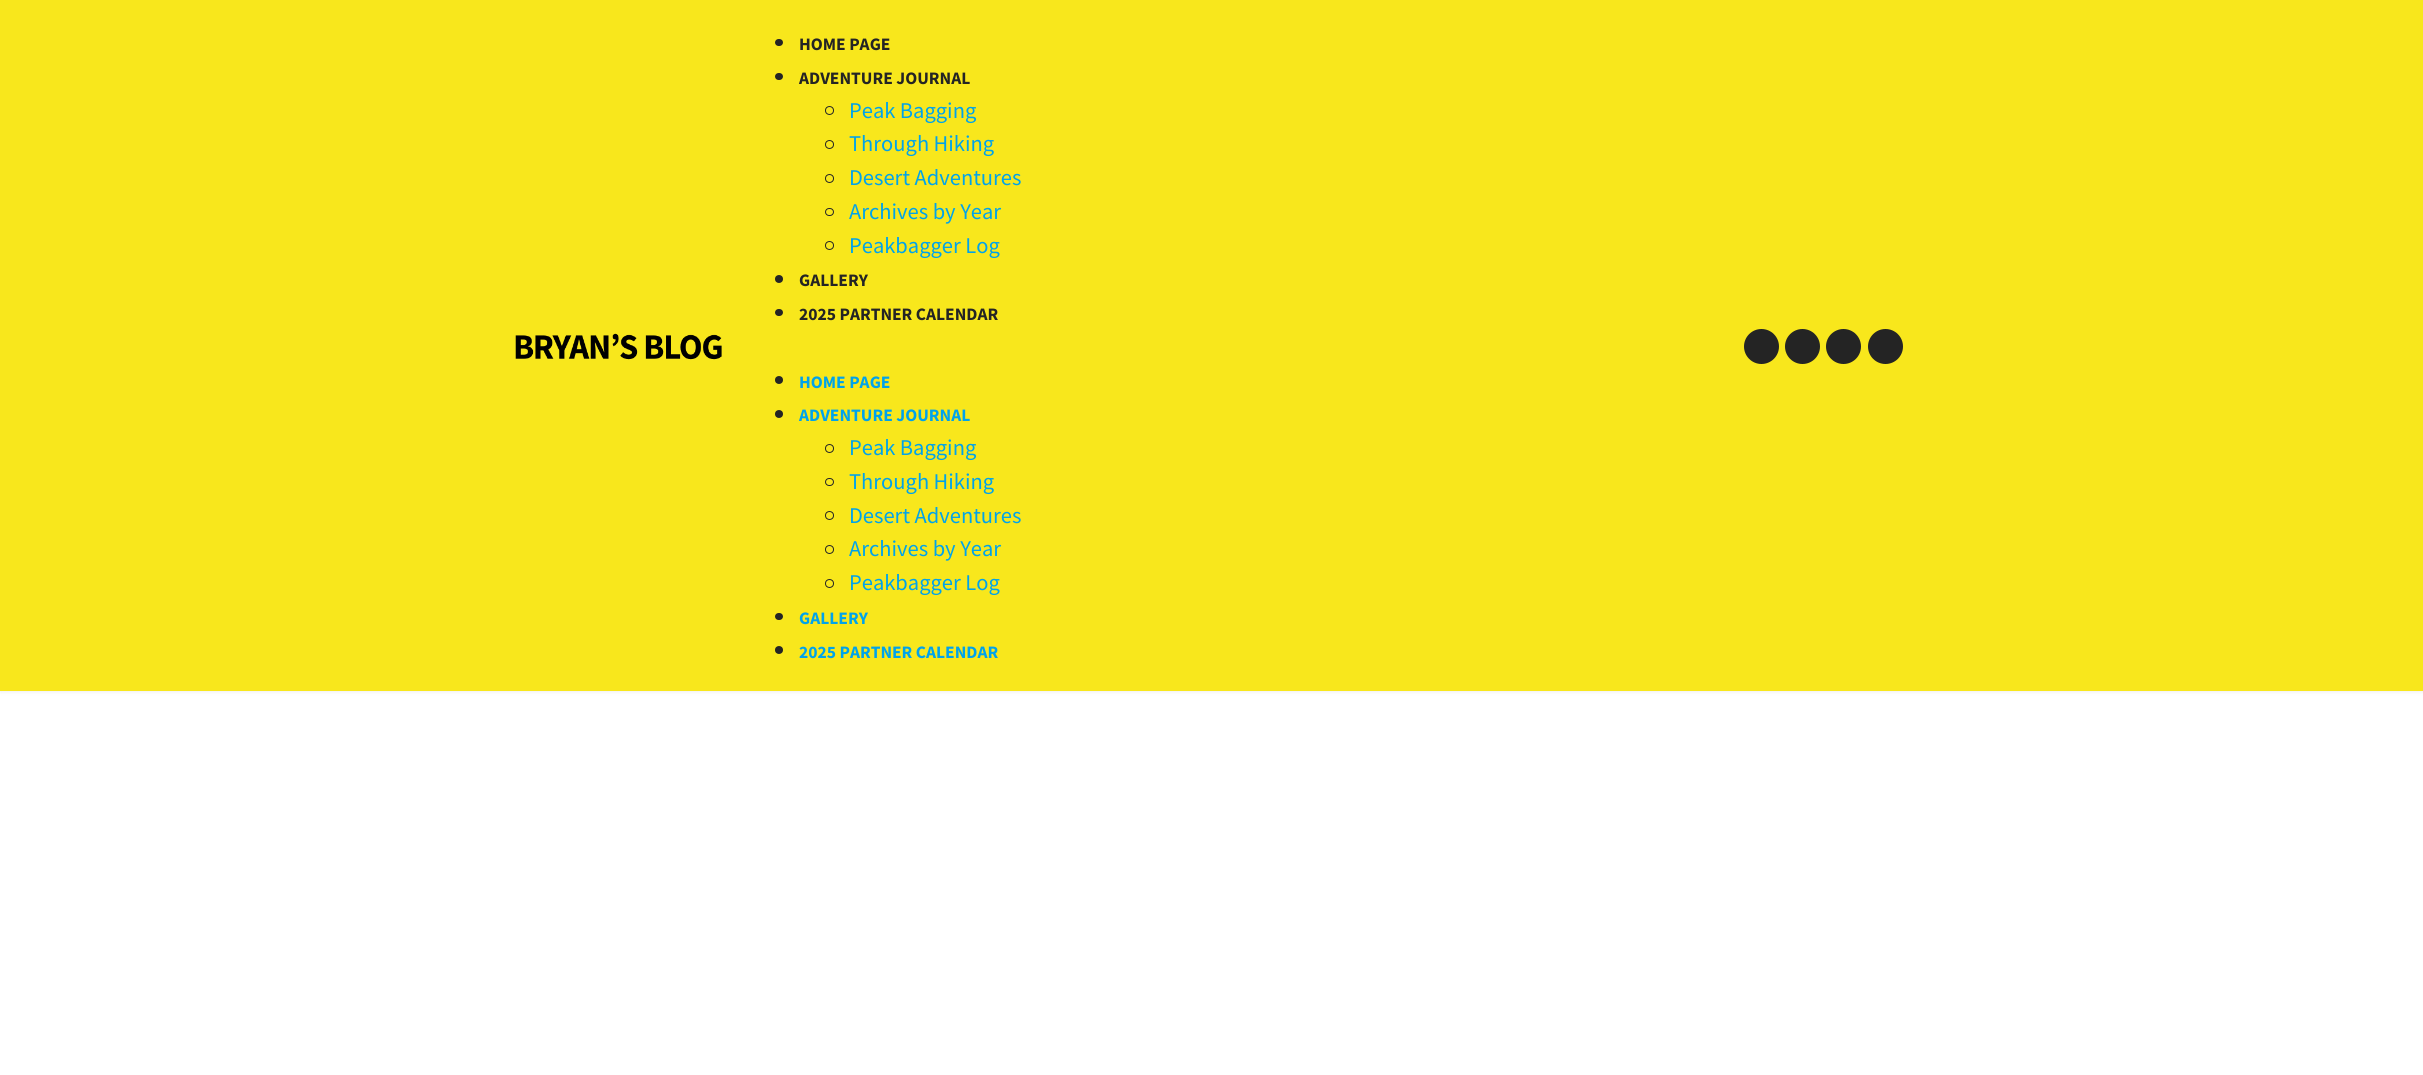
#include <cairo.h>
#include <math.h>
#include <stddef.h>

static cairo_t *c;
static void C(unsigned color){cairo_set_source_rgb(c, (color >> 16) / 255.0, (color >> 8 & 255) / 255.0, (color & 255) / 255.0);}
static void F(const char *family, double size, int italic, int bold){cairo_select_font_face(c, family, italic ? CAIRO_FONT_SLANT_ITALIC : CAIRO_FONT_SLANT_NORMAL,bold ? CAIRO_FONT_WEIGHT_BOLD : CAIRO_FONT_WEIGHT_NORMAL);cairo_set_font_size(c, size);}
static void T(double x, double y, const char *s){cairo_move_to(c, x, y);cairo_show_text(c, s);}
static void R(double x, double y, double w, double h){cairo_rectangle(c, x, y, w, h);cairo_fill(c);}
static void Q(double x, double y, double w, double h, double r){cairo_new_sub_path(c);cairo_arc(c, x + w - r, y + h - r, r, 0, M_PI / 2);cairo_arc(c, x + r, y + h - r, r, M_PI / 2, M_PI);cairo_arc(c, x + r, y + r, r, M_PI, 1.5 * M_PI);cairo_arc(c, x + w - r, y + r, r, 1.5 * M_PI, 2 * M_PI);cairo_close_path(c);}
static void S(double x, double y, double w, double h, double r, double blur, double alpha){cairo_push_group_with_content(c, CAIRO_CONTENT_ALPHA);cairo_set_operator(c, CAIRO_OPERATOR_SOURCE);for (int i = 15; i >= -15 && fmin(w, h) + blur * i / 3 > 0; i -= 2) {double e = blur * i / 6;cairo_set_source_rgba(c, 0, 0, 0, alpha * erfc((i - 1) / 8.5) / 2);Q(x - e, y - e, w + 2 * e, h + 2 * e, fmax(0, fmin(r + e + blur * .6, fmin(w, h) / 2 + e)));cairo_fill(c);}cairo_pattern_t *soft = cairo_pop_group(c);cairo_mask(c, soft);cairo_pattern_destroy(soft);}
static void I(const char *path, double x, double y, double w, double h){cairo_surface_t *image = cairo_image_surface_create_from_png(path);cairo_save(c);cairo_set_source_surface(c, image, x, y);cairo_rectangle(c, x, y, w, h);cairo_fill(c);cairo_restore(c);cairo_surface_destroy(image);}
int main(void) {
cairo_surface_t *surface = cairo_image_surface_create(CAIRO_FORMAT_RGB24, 2423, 1075);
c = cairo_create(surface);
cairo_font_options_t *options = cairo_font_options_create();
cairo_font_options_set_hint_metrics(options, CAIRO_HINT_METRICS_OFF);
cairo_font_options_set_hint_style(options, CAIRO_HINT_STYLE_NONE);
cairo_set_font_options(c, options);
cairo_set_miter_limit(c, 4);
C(0xffffff);
cairo_paint(c);
C(0x000000);
S(0,0,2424,691,0,2.5,.1);
C(0xf8e71c);
R(0,0,2423,691);
I("1.png",515,333,207,27);
C(0x242424);
Q(775,39,8,7,3.5);
cairo_fill(c);
F("Source Sans Pro",17.5,0,1);
T(799,50,"HOME PAGE");
Q(775,73,8,7,3.5);
cairo_fill(c);
T(799,84,"ADVENTURE JOURNAL");
cairo_new_path(c);
cairo_arc(c,829.5,110.5,4,0,2 * M_PI);
cairo_set_line_width(c,1);
cairo_stroke(c);
F("Source Sans Pro",22.5,0,0);
C(0x00a3eb);
T(849,118,"Peak Bagging");
cairo_new_path(c);
cairo_arc(c,829.5,144.5,4,0,2 * M_PI);
C(0x242424);
cairo_stroke(c);
C(0x00a3eb);
T(849,151,"Through Hiking");
cairo_new_path(c);
cairo_arc(c,829.5,178.5,4,0,2 * M_PI);
C(0x242424);
cairo_stroke(c);
C(0x00a3eb);
T(849,185,"Desert Adventures");
Q(825.5,208.5,8,7,3.5);
C(0x242424);
cairo_stroke(c);
C(0x00a3eb);
T(849,219,"Archives by Year");
cairo_new_path(c);
cairo_arc(c,829.5,245.5,4,0,2 * M_PI);
C(0x242424);
cairo_stroke(c);
C(0x00a3eb);
T(849,253,"Peakbagger Log");
C(0x242424);
cairo_new_path(c);
cairo_arc(c,779,279,4,0,2 * M_PI);
cairo_fill(c);
F("Source Sans Pro",17.5,0,1);
T(799,286,"GALLERY");
Q(775,309,8,7,3.5);
cairo_fill(c);
T(799,320,"2025 PARTNER CALENDAR");
cairo_new_path(c);
cairo_arc(c,779,380,4,0,2 * M_PI);
cairo_fill(c);
C(0x00a3eb);
T(799,388,"HOME PAGE");
C(0x242424);
cairo_new_path(c);
cairo_arc(c,779,414,4,0,2 * M_PI);
cairo_fill(c);
C(0x00a3eb);
T(799,421,"ADVENTURE JOURNAL");
cairo_new_path(c);
cairo_arc(c,829.5,448.5,4,0,2 * M_PI);
C(0x242424);
cairo_stroke(c);
F("Source Sans Pro",22.5,0,0);
C(0x00a3eb);
T(849,455,"Peak Bagging");
Q(825.5,478.5,8,7,3.5);
C(0x242424);
cairo_stroke(c);
C(0x00a3eb);
T(849,489,"Through Hiking");
cairo_new_path(c);
cairo_arc(c,829.5,515.5,4,0,2 * M_PI);
C(0x242424);
cairo_stroke(c);
C(0x00a3eb);
T(849,523,"Desert Adventures");
cairo_new_path(c);
cairo_arc(c,829.5,549.5,4,0,2 * M_PI);
C(0x242424);
cairo_stroke(c);
C(0x00a3eb);
T(849,556,"Archives by Year");
cairo_new_path(c);
cairo_arc(c,829.5,583.5,4,0,2 * M_PI);
C(0x242424);
cairo_stroke(c);
C(0x00a3eb);
T(849,590,"Peakbagger Log");
C(0x242424);
Q(775,613,8,7,3.5);
cairo_fill(c);
F("Source Sans Pro",17.5,0,1);
C(0x00a3eb);
T(799,624,"GALLERY");
C(0x242424);
cairo_new_path(c);
cairo_arc(c,779,650,4,0,2 * M_PI);
cairo_fill(c);
C(0x00a3eb);
T(799,658,"2025 PARTNER CALENDAR");
C(0x242424);
cairo_new_path(c);
cairo_arc(c,1761.5,346.5,17.5,0,2 * M_PI);
cairo_fill(c);
cairo_arc(c,1802.5,346.5,17.5,0,2 * M_PI);
cairo_fill(c);
cairo_arc(c,1843.5,346.5,17.5,0,2 * M_PI);
cairo_fill(c);
cairo_arc(c,1885.5,346.5,17.5,0,2 * M_PI);
cairo_fill(c);
cairo_surface_write_to_png(surface, "o.png");
cairo_font_options_destroy(options);
cairo_destroy(c);
cairo_surface_destroy(surface);
return 0;
}
